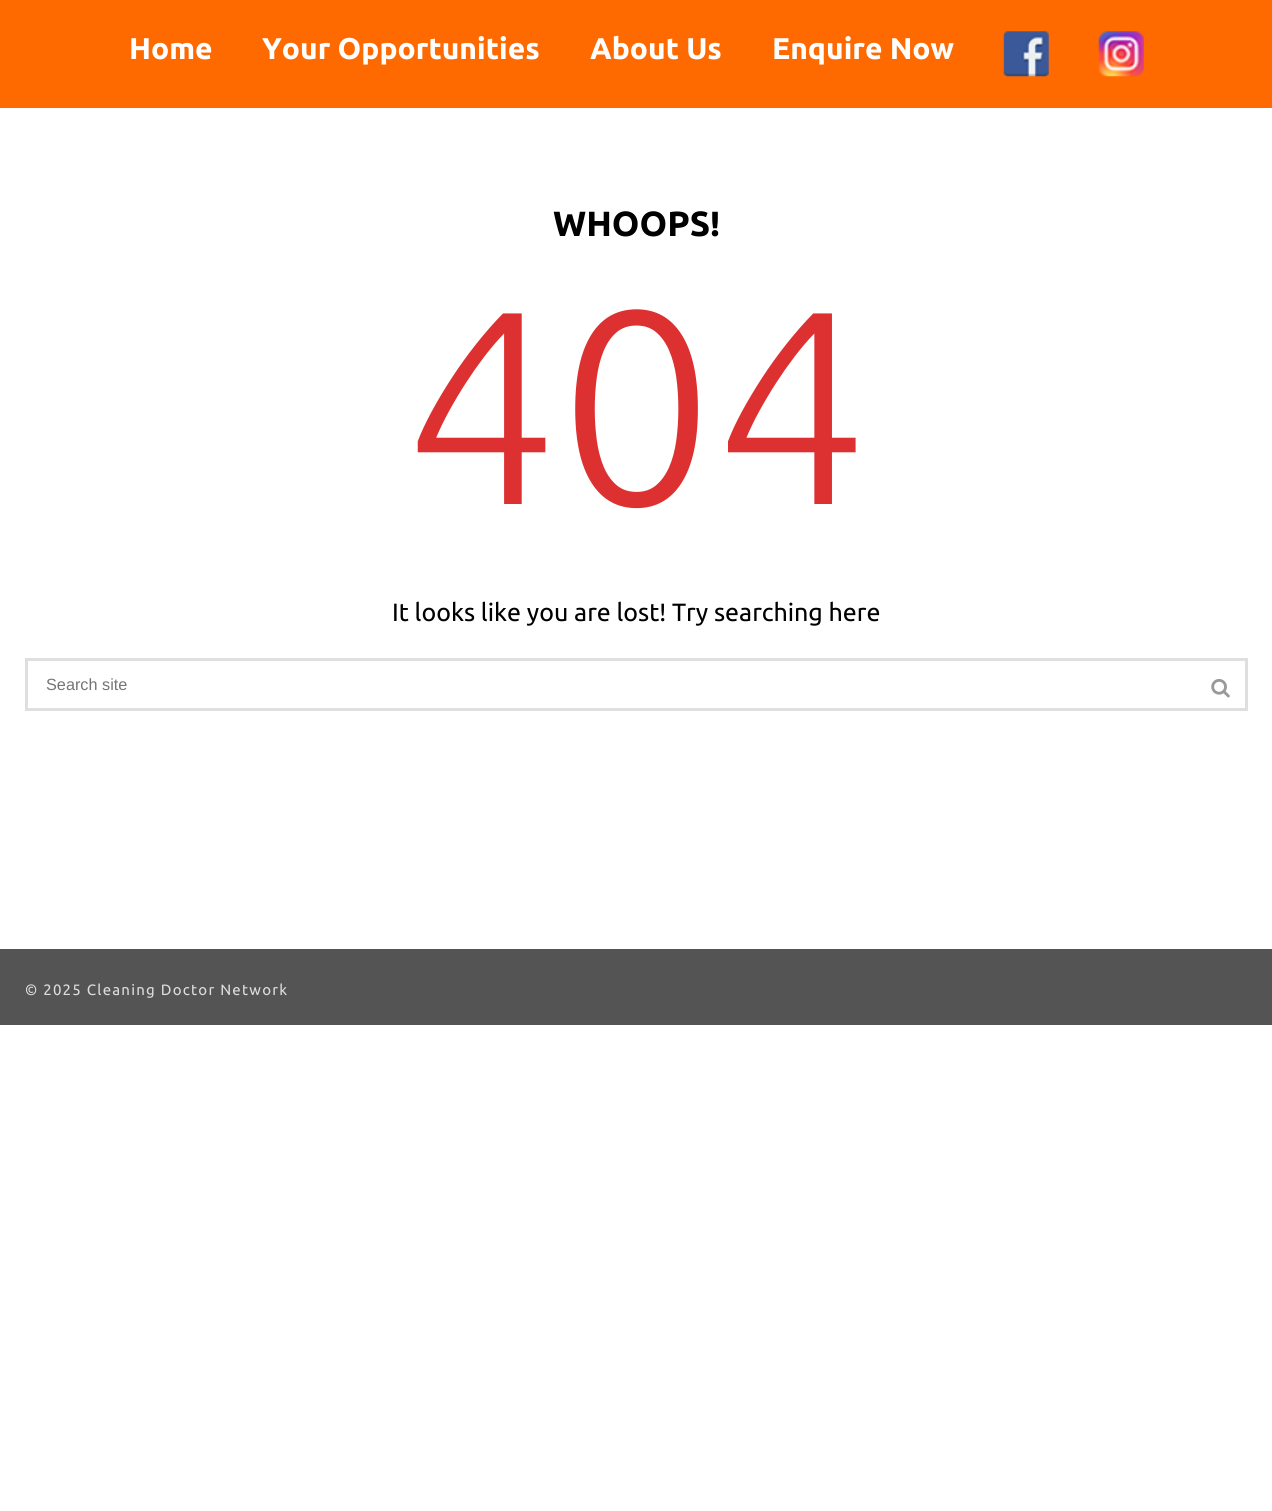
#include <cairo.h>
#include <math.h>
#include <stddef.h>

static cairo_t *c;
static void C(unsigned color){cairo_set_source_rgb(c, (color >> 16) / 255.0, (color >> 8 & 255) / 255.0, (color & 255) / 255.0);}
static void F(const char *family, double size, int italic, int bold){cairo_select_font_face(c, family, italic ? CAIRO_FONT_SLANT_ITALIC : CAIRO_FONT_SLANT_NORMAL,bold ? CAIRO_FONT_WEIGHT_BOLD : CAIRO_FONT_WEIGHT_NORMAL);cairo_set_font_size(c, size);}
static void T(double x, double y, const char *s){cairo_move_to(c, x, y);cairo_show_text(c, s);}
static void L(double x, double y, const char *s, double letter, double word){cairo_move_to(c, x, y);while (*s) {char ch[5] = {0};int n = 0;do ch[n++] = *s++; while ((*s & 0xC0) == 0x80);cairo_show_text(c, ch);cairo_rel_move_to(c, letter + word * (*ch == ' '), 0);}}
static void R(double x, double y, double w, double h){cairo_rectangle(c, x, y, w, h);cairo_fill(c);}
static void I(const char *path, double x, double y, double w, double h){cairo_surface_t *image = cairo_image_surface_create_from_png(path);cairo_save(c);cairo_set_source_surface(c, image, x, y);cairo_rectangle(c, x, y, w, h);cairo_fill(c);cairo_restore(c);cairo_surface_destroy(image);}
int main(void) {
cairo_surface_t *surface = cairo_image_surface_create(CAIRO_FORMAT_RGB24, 1272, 1511);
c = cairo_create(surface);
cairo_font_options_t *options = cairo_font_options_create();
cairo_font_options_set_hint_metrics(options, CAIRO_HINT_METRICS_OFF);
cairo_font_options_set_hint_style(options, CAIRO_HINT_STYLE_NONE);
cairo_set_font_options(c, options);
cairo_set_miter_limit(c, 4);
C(0xffffff);
cairo_paint(c);
C(0xff6a00);
R(0,0,1272,108);
F("Ubuntu",30,0,1);
C(0xffffff);
T(129,59,"Home");
T(262,59,"Your Opportunities");
T(590,59,"About Us");
T(772,59,"Enquire Now");
I("1.png",1003,31,46,46);
I("2.png",1098,31,46,46);
F("Ubuntu",35,0,1);
C(0x000000);
T(553,236,"WHOOPS!");
F("Ubuntu Light",275,0,0);
C(0xdd3030);
T(404,504,"404");
F("Ubuntu",25,0,0);
C(0x000000);
T(392,621,"It looks like you are lost! Try searching here");
cairo_rectangle(c,26.5,659.5,1220,50);
C(0xdfdfdf);
cairo_set_line_width(c,3);
cairo_stroke(c);
F("Liberation Sans",16.25,0,0);
C(0x757575);
T(46,690,"Search site");
I("3.png",1211,679,19,19);
C(0x545454);
R(0,949,1272,76);
F("Ubuntu",15,0,0);
C(0xdddddd);
L(25,995,"© 2025 Cleaning Doctor Network",1.25,0);
cairo_surface_write_to_png(surface, "o.png");
cairo_font_options_destroy(options);
cairo_destroy(c);
cairo_surface_destroy(surface);
return 0;
}
